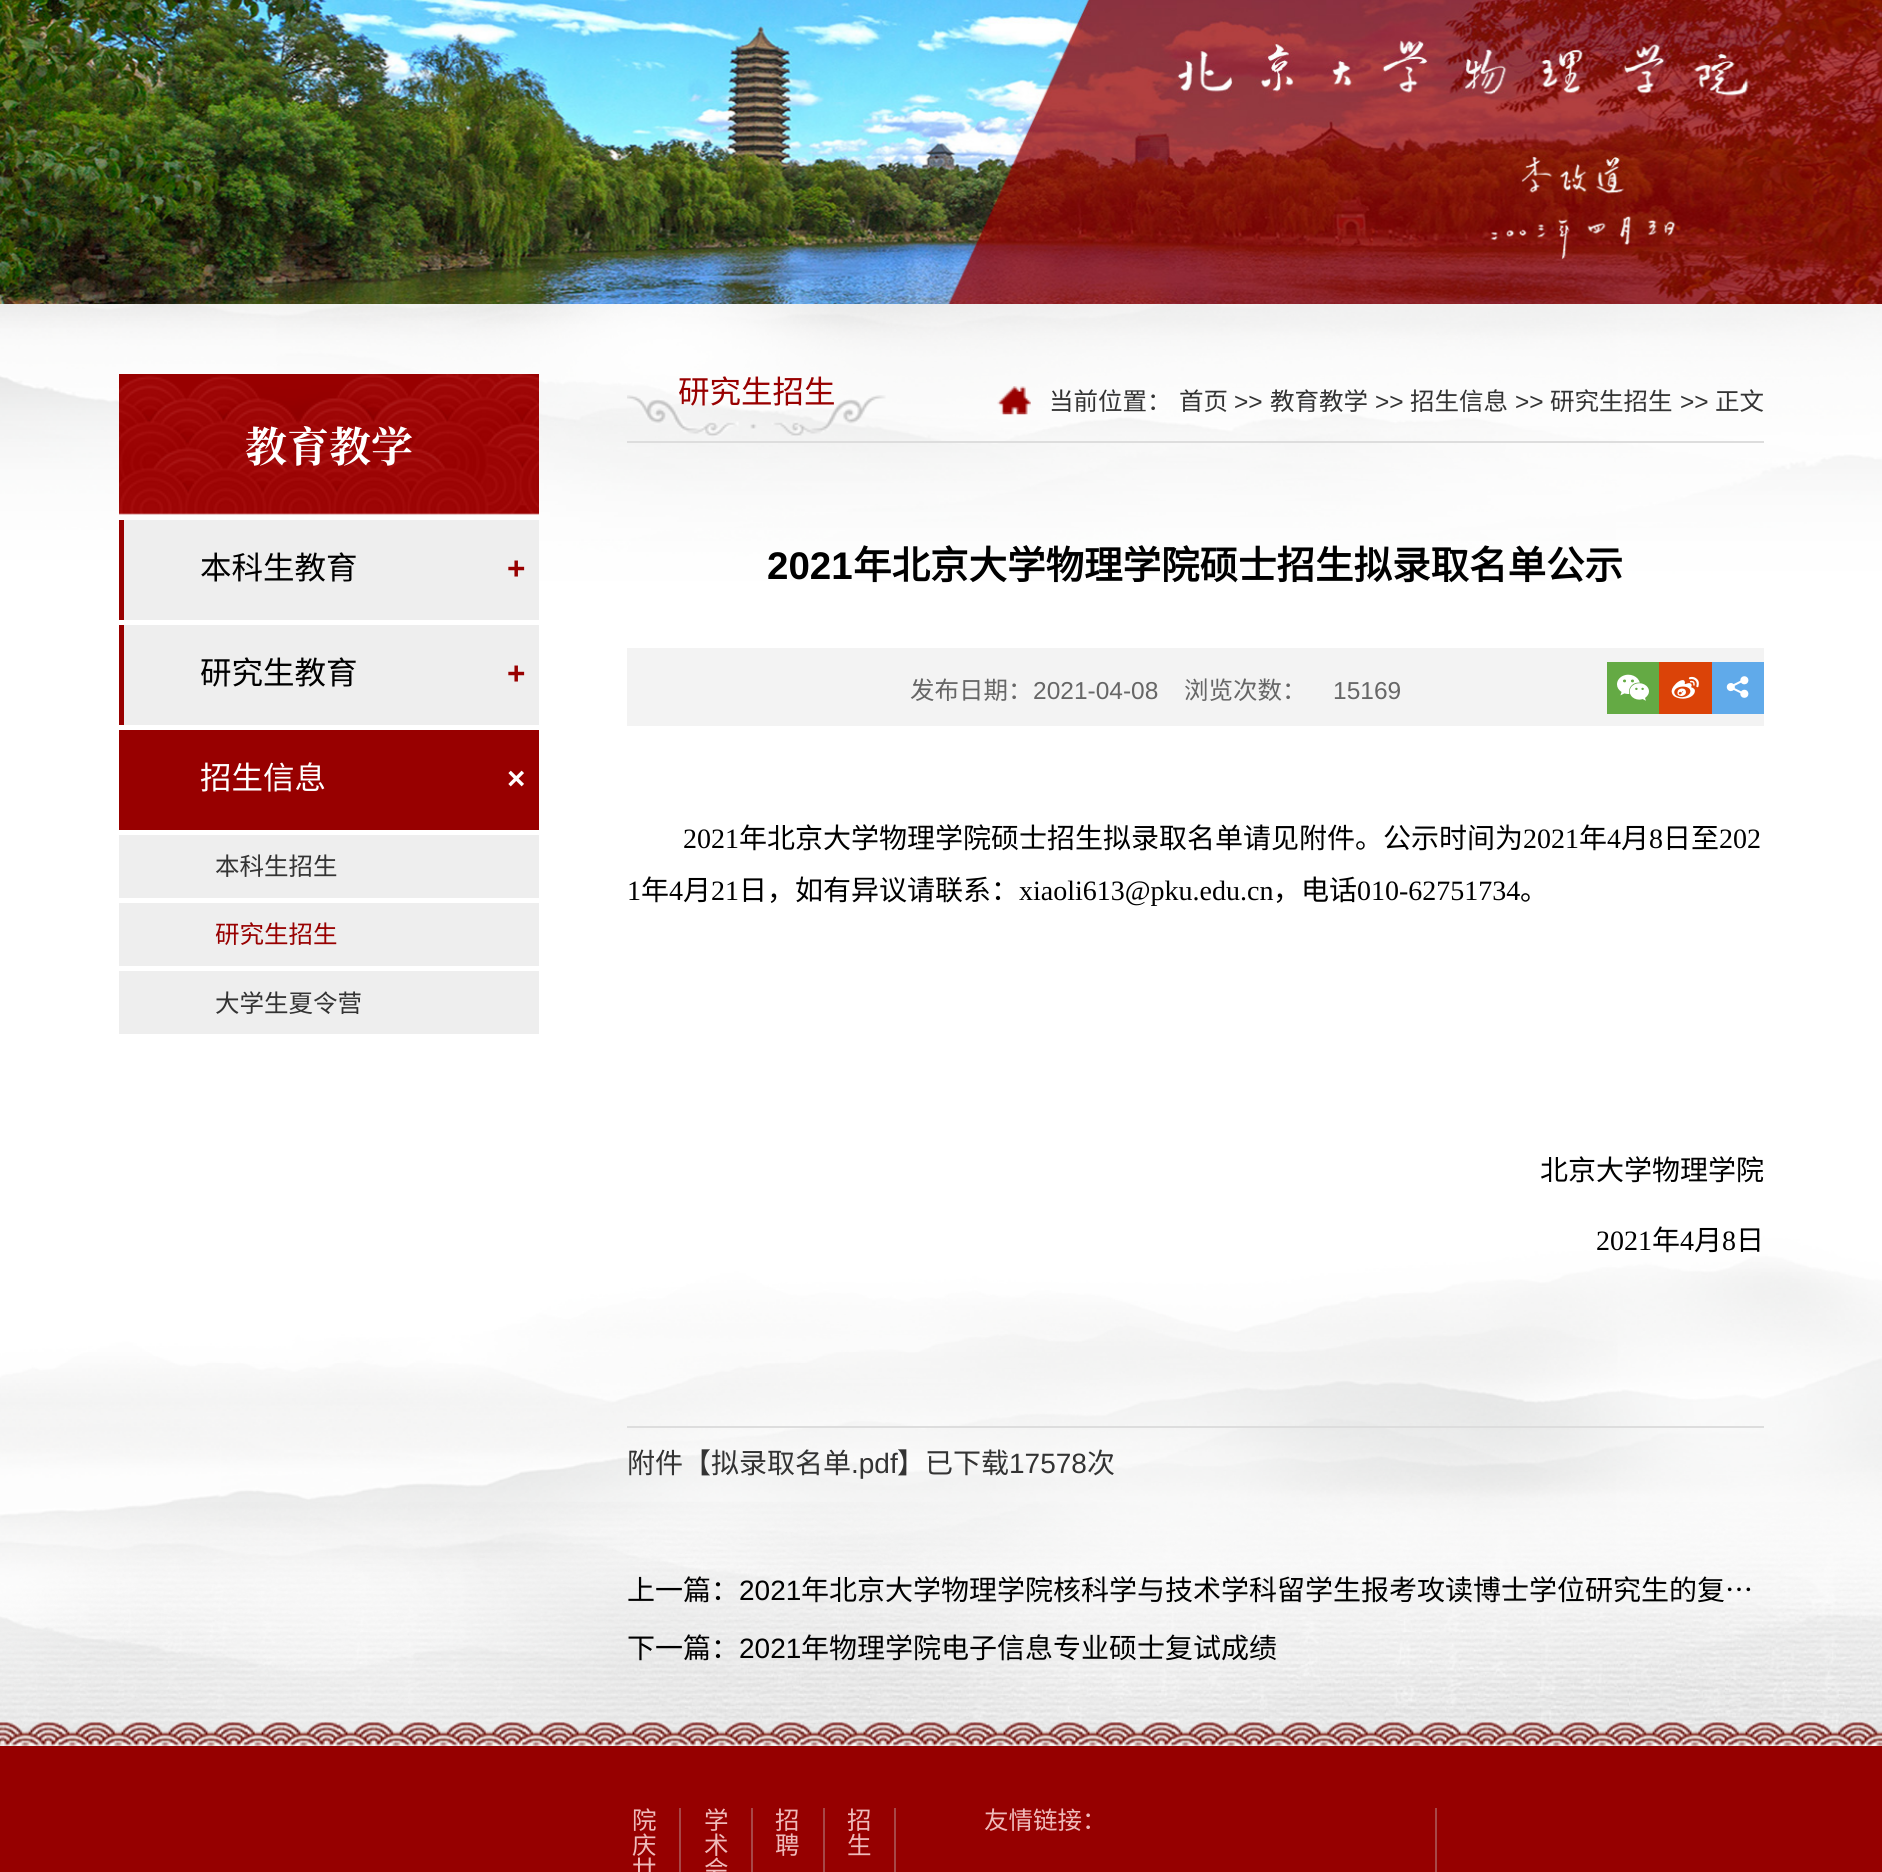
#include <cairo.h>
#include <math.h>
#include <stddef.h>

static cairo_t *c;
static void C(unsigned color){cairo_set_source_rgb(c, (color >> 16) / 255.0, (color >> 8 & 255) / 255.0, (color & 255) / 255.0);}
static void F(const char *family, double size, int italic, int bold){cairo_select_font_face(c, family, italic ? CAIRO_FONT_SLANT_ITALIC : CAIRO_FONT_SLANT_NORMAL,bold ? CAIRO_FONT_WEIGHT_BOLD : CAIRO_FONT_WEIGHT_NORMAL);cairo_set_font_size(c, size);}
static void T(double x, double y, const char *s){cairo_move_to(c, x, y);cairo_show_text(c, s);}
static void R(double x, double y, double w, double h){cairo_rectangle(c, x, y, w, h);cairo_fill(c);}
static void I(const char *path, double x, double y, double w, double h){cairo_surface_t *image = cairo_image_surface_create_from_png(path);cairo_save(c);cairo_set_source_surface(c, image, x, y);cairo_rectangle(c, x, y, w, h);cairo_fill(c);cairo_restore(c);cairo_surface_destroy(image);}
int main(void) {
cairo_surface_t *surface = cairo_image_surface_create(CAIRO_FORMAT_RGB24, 1882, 1872);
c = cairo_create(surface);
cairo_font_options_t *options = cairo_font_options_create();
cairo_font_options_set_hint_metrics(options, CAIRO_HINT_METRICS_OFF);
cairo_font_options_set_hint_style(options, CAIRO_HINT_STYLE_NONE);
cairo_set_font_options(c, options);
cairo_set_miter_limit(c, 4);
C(0xffffff);
cairo_paint(c);
I("1.png",0,0,1882,304);
I("2.png",0,304,1882,1442);
I("3.png",119,374,420,141);
F("Noto Serif CJK SC",42,0,1);
C(0xffffff);
T(245,462,"教育教学");
C(0xeeeeee);
R(124,520,415,100);
C(0x980000);
R(119,520,5,100);
F("Noto Sans CJK SC",31.5,0,0);
C(0x000000);
T(200,579,"本科生教育");
F("Liberation Sans",31.5,0,1);
C(0x980000);
T(507,579,"+");
C(0xeeeeee);
R(124,625,415,100);
C(0x980000);
R(119,625,5,100);
F("Noto Sans CJK SC",31.5,0,0);
C(0x000000);
T(200,684,"研究生教育");
F("Liberation Sans",31.5,0,1);
C(0x980000);
T(507,684,"+");
R(119,730,420,100);
F("Noto Sans CJK SC",31.5,0,0);
C(0xffffff);
T(200,789,"招生信息");
F("Liberation Sans",31.5,0,1);
T(507,789,"×");
C(0xeeeeee);
R(119,835,420,63);
F("Noto Sans CJK SC",24.5,0,0);
C(0x333333);
T(215,875,"本科生招生");
C(0xeeeeee);
R(119,903,420,63);
C(0x980000);
T(215,943,"研究生招生");
C(0xeeeeee);
R(119,971,420,63);
C(0x333333);
T(215,1012,"大学生夏令营");
C(0xdddddd);
R(627,441,1137,2);
I("4.png",627,395,259,42);
F("Noto Sans CJK SC",31.5,0,0);
C(0x980000);
T(678,403,"研究生招生");
I("5.png",997,386,34,29);
F("Noto Sans CJK SC",24.5,0,0);
C(0x333333);
T(1049,410,"当前位置：");
T(1179,410,"首页");
F("Liberation Sans",24.5,0,0);
T(1234,410,">>");
F("Noto Sans CJK SC",24.5,0,0);
T(1270,410,"教育教学");
F("Liberation Sans",24.5,0,0);
T(1375,410,">>");
F("Noto Sans CJK SC",24.5,0,0);
T(1410,410,"招生信息");
F("Liberation Sans",24.5,0,0);
T(1515,410,">>");
F("Noto Sans CJK SC",24.5,0,0);
T(1550,410,"研究生招生");
F("Liberation Sans",24.5,0,0);
T(1680,410,">>");
F("Noto Sans CJK SC",24.5,0,0);
T(1715,410,"正文");
F("Liberation Sans",38.5,0,1);
C(0x000000);
T(767,579,"2021");
F("Noto Sans CJK SC",38.5,0,1);
T(853,579,"年北京大学物理学院硕士招生拟录取名单公示");
C(0xf3f3f3);
R(627,648,1137,78);
F("Noto Sans CJK SC",24.5,0,0);
C(0x666666);
T(910,699,"发布日期：");
F("Liberation Sans",24.5,0,0);
T(1033,699,"2021-04-08");
F("Noto Sans CJK SC",24.5,0,0);
T(1184,699,"浏览次数：");
F("Liberation Sans",24.5,0,0);
T(1333,699,"15169");
C(0x64aa44);
R(1607,662,52,52);
I("6.png",1617,674,32,27);
C(0xdb4308);
R(1659,662,53,52);
I("7.png",1671,676,28,23);
C(0x60aaea);
R(1712,662,52,52);
I("8.png",1726,676,23,22);
C(0xdddddd);
R(627,1426,1137,2);
F("Liberation Serif",28,0,0);
C(0x000000);
T(683,848,"2021");
F("Noto Sans CJK SC",28,0,0);
T(739,848,"年北京大学物理学院硕士招生拟录取名单请见附件。公示时间为");
F("Liberation Serif",28,0,0);
T(1523,848,"2021");
F("Noto Sans CJK SC",28,0,0);
T(1579,848,"年");
F("Liberation Serif",28,0,0);
T(1607,848,"4");
F("Noto Sans CJK SC",28,0,0);
T(1621,848,"月");
F("Liberation Serif",28,0,0);
T(1649,848,"8");
F("Noto Sans CJK SC",28,0,0);
T(1663,848,"日至");
F("Liberation Serif",28,0,0);
T(1719,848,"202");
T(627,900,"1");
F("Noto Sans CJK SC",28,0,0);
T(641,900,"年");
F("Liberation Serif",28,0,0);
T(669,900,"4");
F("Noto Sans CJK SC",28,0,0);
T(683,900,"月");
F("Liberation Serif",28,0,0);
T(711,900,"21");
F("Noto Sans CJK SC",28,0,0);
T(739,900,"日，如有异议请联系：");
F("Liberation Serif",28,0,0);
T(1019,900,"xiaoli613@pku.edu.cn");
F("Noto Sans CJK SC",28,0,0);
T(1273,900,"，电话");
F("Liberation Serif",28,0,0);
T(1357,900,"010-62751734");
F("Noto Sans CJK SC",28,0,0);
T(1520,900,"。");
T(1540,1180,"北京大学物理学院");
F("Liberation Serif",28,0,0);
T(1596,1250,"2021");
F("Noto Sans CJK SC",28,0,0);
T(1652,1250,"年");
F("Liberation Serif",28,0,0);
T(1680,1250,"4");
F("Noto Sans CJK SC",28,0,0);
T(1694,1250,"月");
F("Liberation Serif",28,0,0);
T(1722,1250,"8");
F("Noto Sans CJK SC",28,0,0);
T(1736,1250,"日");
C(0x333333);
T(627,1473,"附件【拟录取名单");
F("Liberation Sans",28,0,0);
T(851,1473,".pdf");
F("Noto Sans CJK SC",28,0,0);
T(897,1473,"】已下载");
F("Liberation Sans",28,0,0);
T(1009,1473,"17578");
F("Noto Sans CJK SC",28,0,0);
T(1087,1473,"次");
C(0x000000);
T(627,1600,"上一篇：");
F("Liberation Sans",28,0,0);
T(739,1600,"2021");
F("Noto Sans CJK SC",28,0,0);
T(801,1600,"年北京大学物理学院核科学与技术学科留学生报考攻读博士学位研究生的复…");
T(627,1658,"下一篇：");
F("Liberation Sans",28,0,0);
T(739,1658,"2021");
F("Noto Sans CJK SC",28,0,0);
T(801,1658,"年物理学院电子信息专业硕士复试成绩");
I("9.png",0,1722,1882,24);
C(0x960000);
R(0,1746,1882,126);
C(0xa74747);
R(679,1808,2,64);
F("Noto Sans CJK SC",24.5,0,0);
C(0xefbbbb);
T(632,1829,"院");
T(632,1854,"庆");
T(632,1878,"廿");
C(0xa74747);
R(751,1808,2,64);
C(0xefbbbb);
T(704,1829,"学");
T(704,1854,"术");
T(704,1878,"会");
C(0xa74747);
R(823,1808,2,64);
C(0xefbbbb);
T(775,1829,"招");
T(775,1854,"聘");
C(0xa74747);
R(894,1808,2,64);
C(0xefbbbb);
T(847,1829,"招");
T(847,1854,"生");
T(984,1829,"友情链接：");
C(0xa74747);
R(1435,1808,2,64);
cairo_surface_write_to_png(surface, "o.png");
cairo_font_options_destroy(options);
cairo_destroy(c);
cairo_surface_destroy(surface);
return 0;
}
